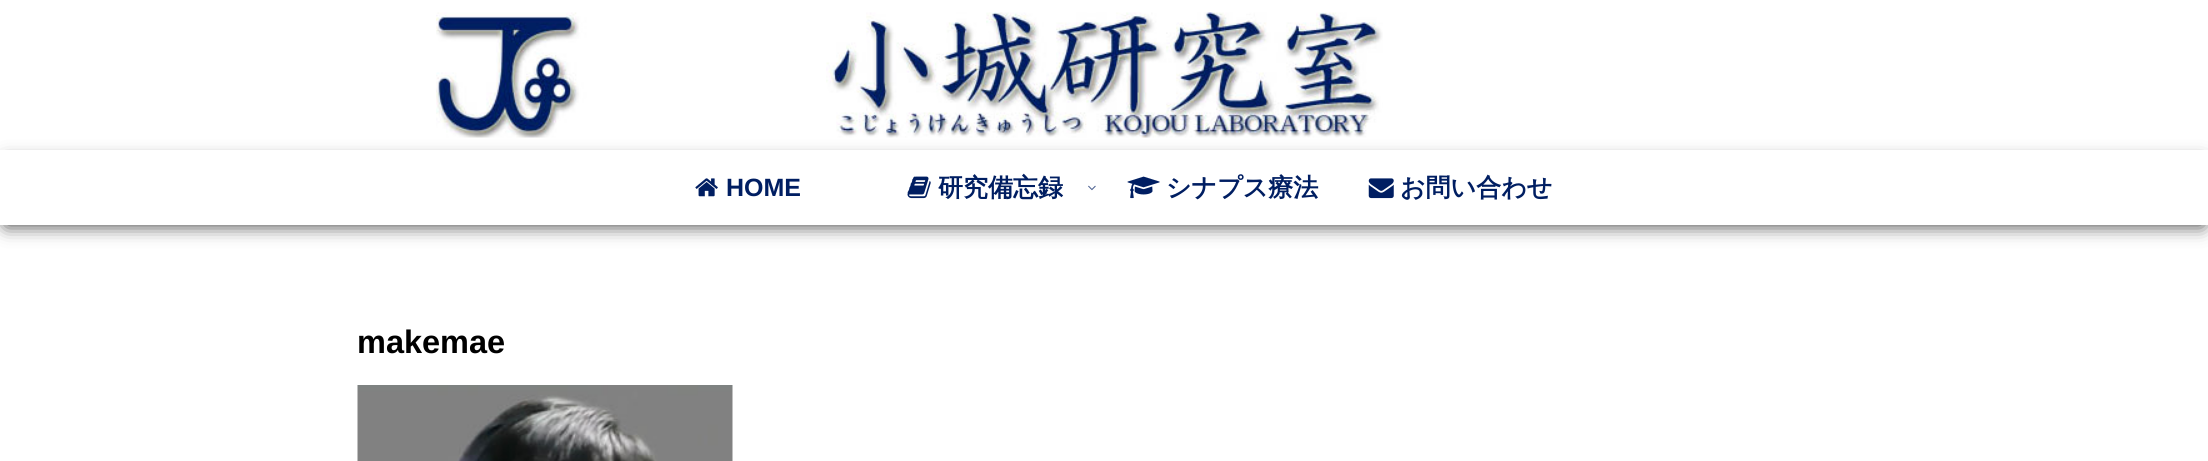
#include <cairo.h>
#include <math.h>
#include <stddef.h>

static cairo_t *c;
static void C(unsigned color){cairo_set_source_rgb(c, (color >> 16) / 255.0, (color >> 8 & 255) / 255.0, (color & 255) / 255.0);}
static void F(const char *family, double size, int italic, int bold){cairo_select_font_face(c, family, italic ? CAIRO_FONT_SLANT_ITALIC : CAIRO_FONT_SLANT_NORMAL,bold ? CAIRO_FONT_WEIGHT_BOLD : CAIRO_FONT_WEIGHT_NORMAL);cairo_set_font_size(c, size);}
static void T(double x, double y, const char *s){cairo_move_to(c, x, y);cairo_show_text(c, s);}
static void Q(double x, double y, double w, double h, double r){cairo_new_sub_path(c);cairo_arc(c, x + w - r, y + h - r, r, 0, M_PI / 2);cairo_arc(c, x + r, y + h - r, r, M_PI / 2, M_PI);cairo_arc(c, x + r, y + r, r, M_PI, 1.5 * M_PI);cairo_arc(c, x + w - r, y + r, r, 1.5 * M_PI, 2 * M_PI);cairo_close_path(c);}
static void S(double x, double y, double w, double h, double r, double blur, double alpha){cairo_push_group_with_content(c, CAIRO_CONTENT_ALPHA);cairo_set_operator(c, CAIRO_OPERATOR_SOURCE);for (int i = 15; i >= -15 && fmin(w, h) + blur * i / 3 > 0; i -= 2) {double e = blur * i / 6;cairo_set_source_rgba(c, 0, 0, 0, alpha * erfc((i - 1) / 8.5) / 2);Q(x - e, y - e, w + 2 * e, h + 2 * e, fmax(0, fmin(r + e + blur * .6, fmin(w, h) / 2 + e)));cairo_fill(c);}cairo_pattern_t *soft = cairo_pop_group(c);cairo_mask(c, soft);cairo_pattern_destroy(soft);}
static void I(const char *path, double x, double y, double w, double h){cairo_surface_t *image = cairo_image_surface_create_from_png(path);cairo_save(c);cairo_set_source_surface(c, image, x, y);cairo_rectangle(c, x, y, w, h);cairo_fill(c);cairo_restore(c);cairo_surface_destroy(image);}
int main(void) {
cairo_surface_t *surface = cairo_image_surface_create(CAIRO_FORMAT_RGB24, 2208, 461);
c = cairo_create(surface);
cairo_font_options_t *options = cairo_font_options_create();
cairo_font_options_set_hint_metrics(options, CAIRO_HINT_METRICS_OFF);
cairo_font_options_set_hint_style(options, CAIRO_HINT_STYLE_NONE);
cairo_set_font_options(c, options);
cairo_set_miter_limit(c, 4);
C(0xffffff);
cairo_paint(c);
cairo_save(c);
cairo_set_fill_rule(c,CAIRO_FILL_RULE_EVEN_ODD);
cairo_new_path(c);
cairo_move_to(c,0,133);
cairo_line_to(c,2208,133);
cairo_line_to(c,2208,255);
cairo_line_to(c,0,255);
cairo_close_path(c);
cairo_move_to(c,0,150);
cairo_line_to(c,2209,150);
cairo_line_to(c,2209,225);
cairo_line_to(c,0,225);
cairo_close_path(c);
cairo_clip(c);
C(0x000000);
S(6,163,2197,62,0,9.5,.8);
cairo_restore(c);
I("1.png",436,12,947,126);
I("2.png",695,178,23,19);
F("Liberation Sans",25,0,1);
C(0x001e62);
T(726,196,"HOME");
I("3.png",907,176,24,23);
F("WenQuanYi Zen Hei",25,0,1);
T(938,196,"研究備忘録");
I("4.png",1088,185,8,6);
I("5.png",1127,176,33,23);
T(1166,196,"シナプス療法");
I("6.png",1368,178,26,21);
T(1400,196,"お問い合わせ");
F("Liberation Sans",32.5,0,1);
C(0x000000);
T(357,353,"makemae");
I("7.png",357,385,376,76);
cairo_surface_write_to_png(surface, "o.png");
cairo_font_options_destroy(options);
cairo_destroy(c);
cairo_surface_destroy(surface);
return 0;
}
